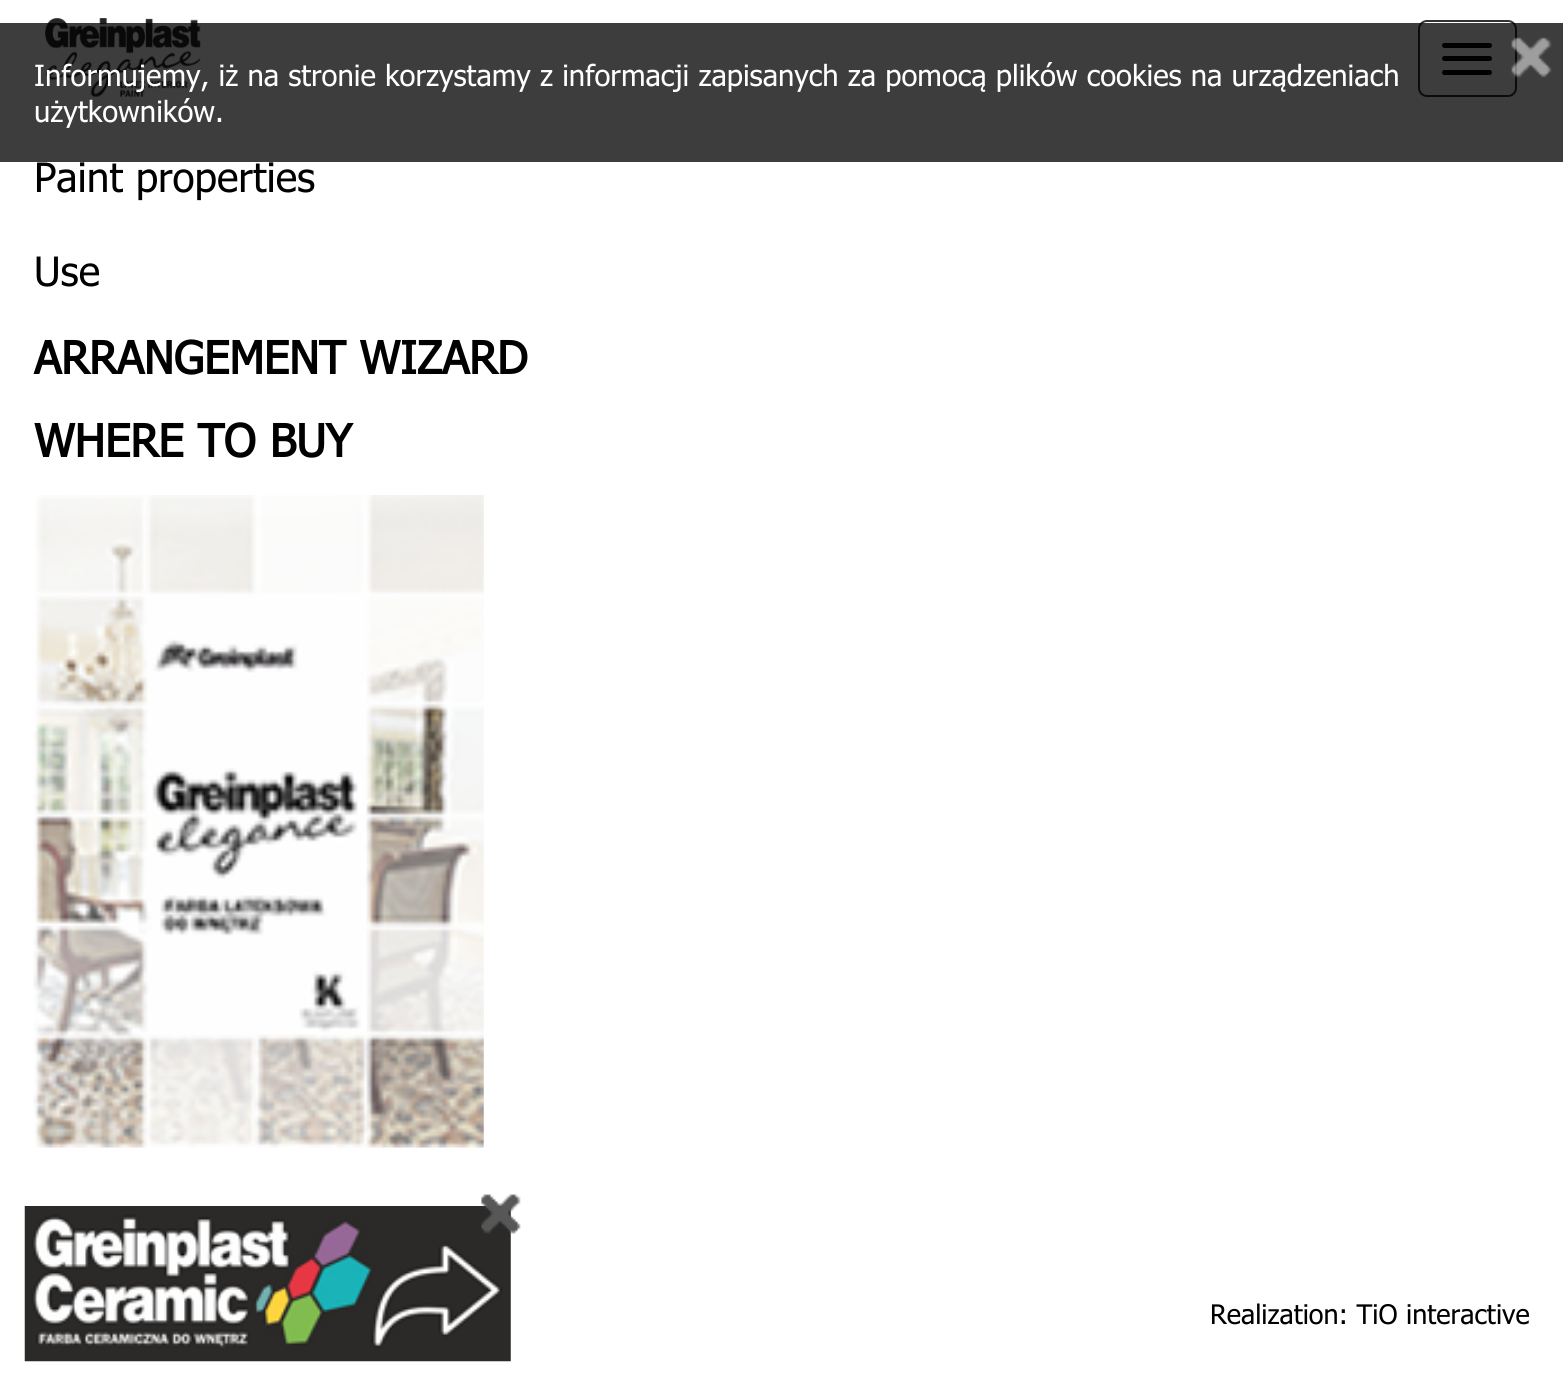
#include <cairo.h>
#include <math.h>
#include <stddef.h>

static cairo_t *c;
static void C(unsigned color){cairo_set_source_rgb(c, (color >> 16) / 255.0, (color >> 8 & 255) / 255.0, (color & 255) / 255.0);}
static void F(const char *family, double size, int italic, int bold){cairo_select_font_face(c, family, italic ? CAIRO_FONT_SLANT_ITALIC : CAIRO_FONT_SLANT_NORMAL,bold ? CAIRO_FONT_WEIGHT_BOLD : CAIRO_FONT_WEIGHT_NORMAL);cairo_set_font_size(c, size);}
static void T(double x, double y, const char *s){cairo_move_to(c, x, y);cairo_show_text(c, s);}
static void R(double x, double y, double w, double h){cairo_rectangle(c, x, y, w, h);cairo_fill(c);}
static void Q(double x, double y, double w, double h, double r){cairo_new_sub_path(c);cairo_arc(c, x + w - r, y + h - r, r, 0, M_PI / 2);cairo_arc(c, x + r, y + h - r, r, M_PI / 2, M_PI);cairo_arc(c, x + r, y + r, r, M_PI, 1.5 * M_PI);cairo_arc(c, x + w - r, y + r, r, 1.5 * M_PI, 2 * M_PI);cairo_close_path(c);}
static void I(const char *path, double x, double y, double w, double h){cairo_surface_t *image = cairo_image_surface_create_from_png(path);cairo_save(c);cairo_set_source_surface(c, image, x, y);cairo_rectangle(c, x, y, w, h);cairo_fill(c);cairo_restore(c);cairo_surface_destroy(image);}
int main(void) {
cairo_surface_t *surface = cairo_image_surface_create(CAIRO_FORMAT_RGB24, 1563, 1386);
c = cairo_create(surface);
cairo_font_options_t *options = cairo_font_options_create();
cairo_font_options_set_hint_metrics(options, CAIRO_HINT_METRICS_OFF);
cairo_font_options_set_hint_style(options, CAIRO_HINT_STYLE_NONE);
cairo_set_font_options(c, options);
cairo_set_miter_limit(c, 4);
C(0xffffff);
cairo_paint(c);
I("1.png",45,18,156,79);
Q(1419,21,97,75,8);
C(0x333333);
cairo_stroke(c);
C(0x000000);
Q(1442,43,50,5,2.5);
cairo_fill(c);
Q(1442,56,50,5,2.5);
cairo_fill(c);
Q(1442,70,50,5,2.5);
cairo_fill(c);
cairo_set_source_rgba(c,0,0,0,0.76);
R(0,23,1563,139);
F("Tahoma",29.25,0,0);
C(0xffffff);
T(34,86,"Informujemy, iż na stronie korzystamy z informacji zapisanych za pomocą plików cookies na urządzeniach");
I("2.png",1511,37,41,41);
T(34,122,"użytkowników.");
F("Tahoma",40.5,0,0);
C(0x000000);
T(34,192,"Paint properties");
T(34,286,"Use");
F("Tahoma",45,0,1);
T(34,374,"ARRANGEMENT WIZARD");
T(34,457,"WHERE TO BUY");
I("3.png",33,495,451,653);
F("Tahoma",27,0,0);
T(1210,1324,"Realization: TiO interactive");
I("5.png",24,1206,487,156);
I("4.png",481,1194,40,40);
cairo_surface_write_to_png(surface, "o.png");
cairo_font_options_destroy(options);
cairo_destroy(c);
cairo_surface_destroy(surface);
return 0;
}
